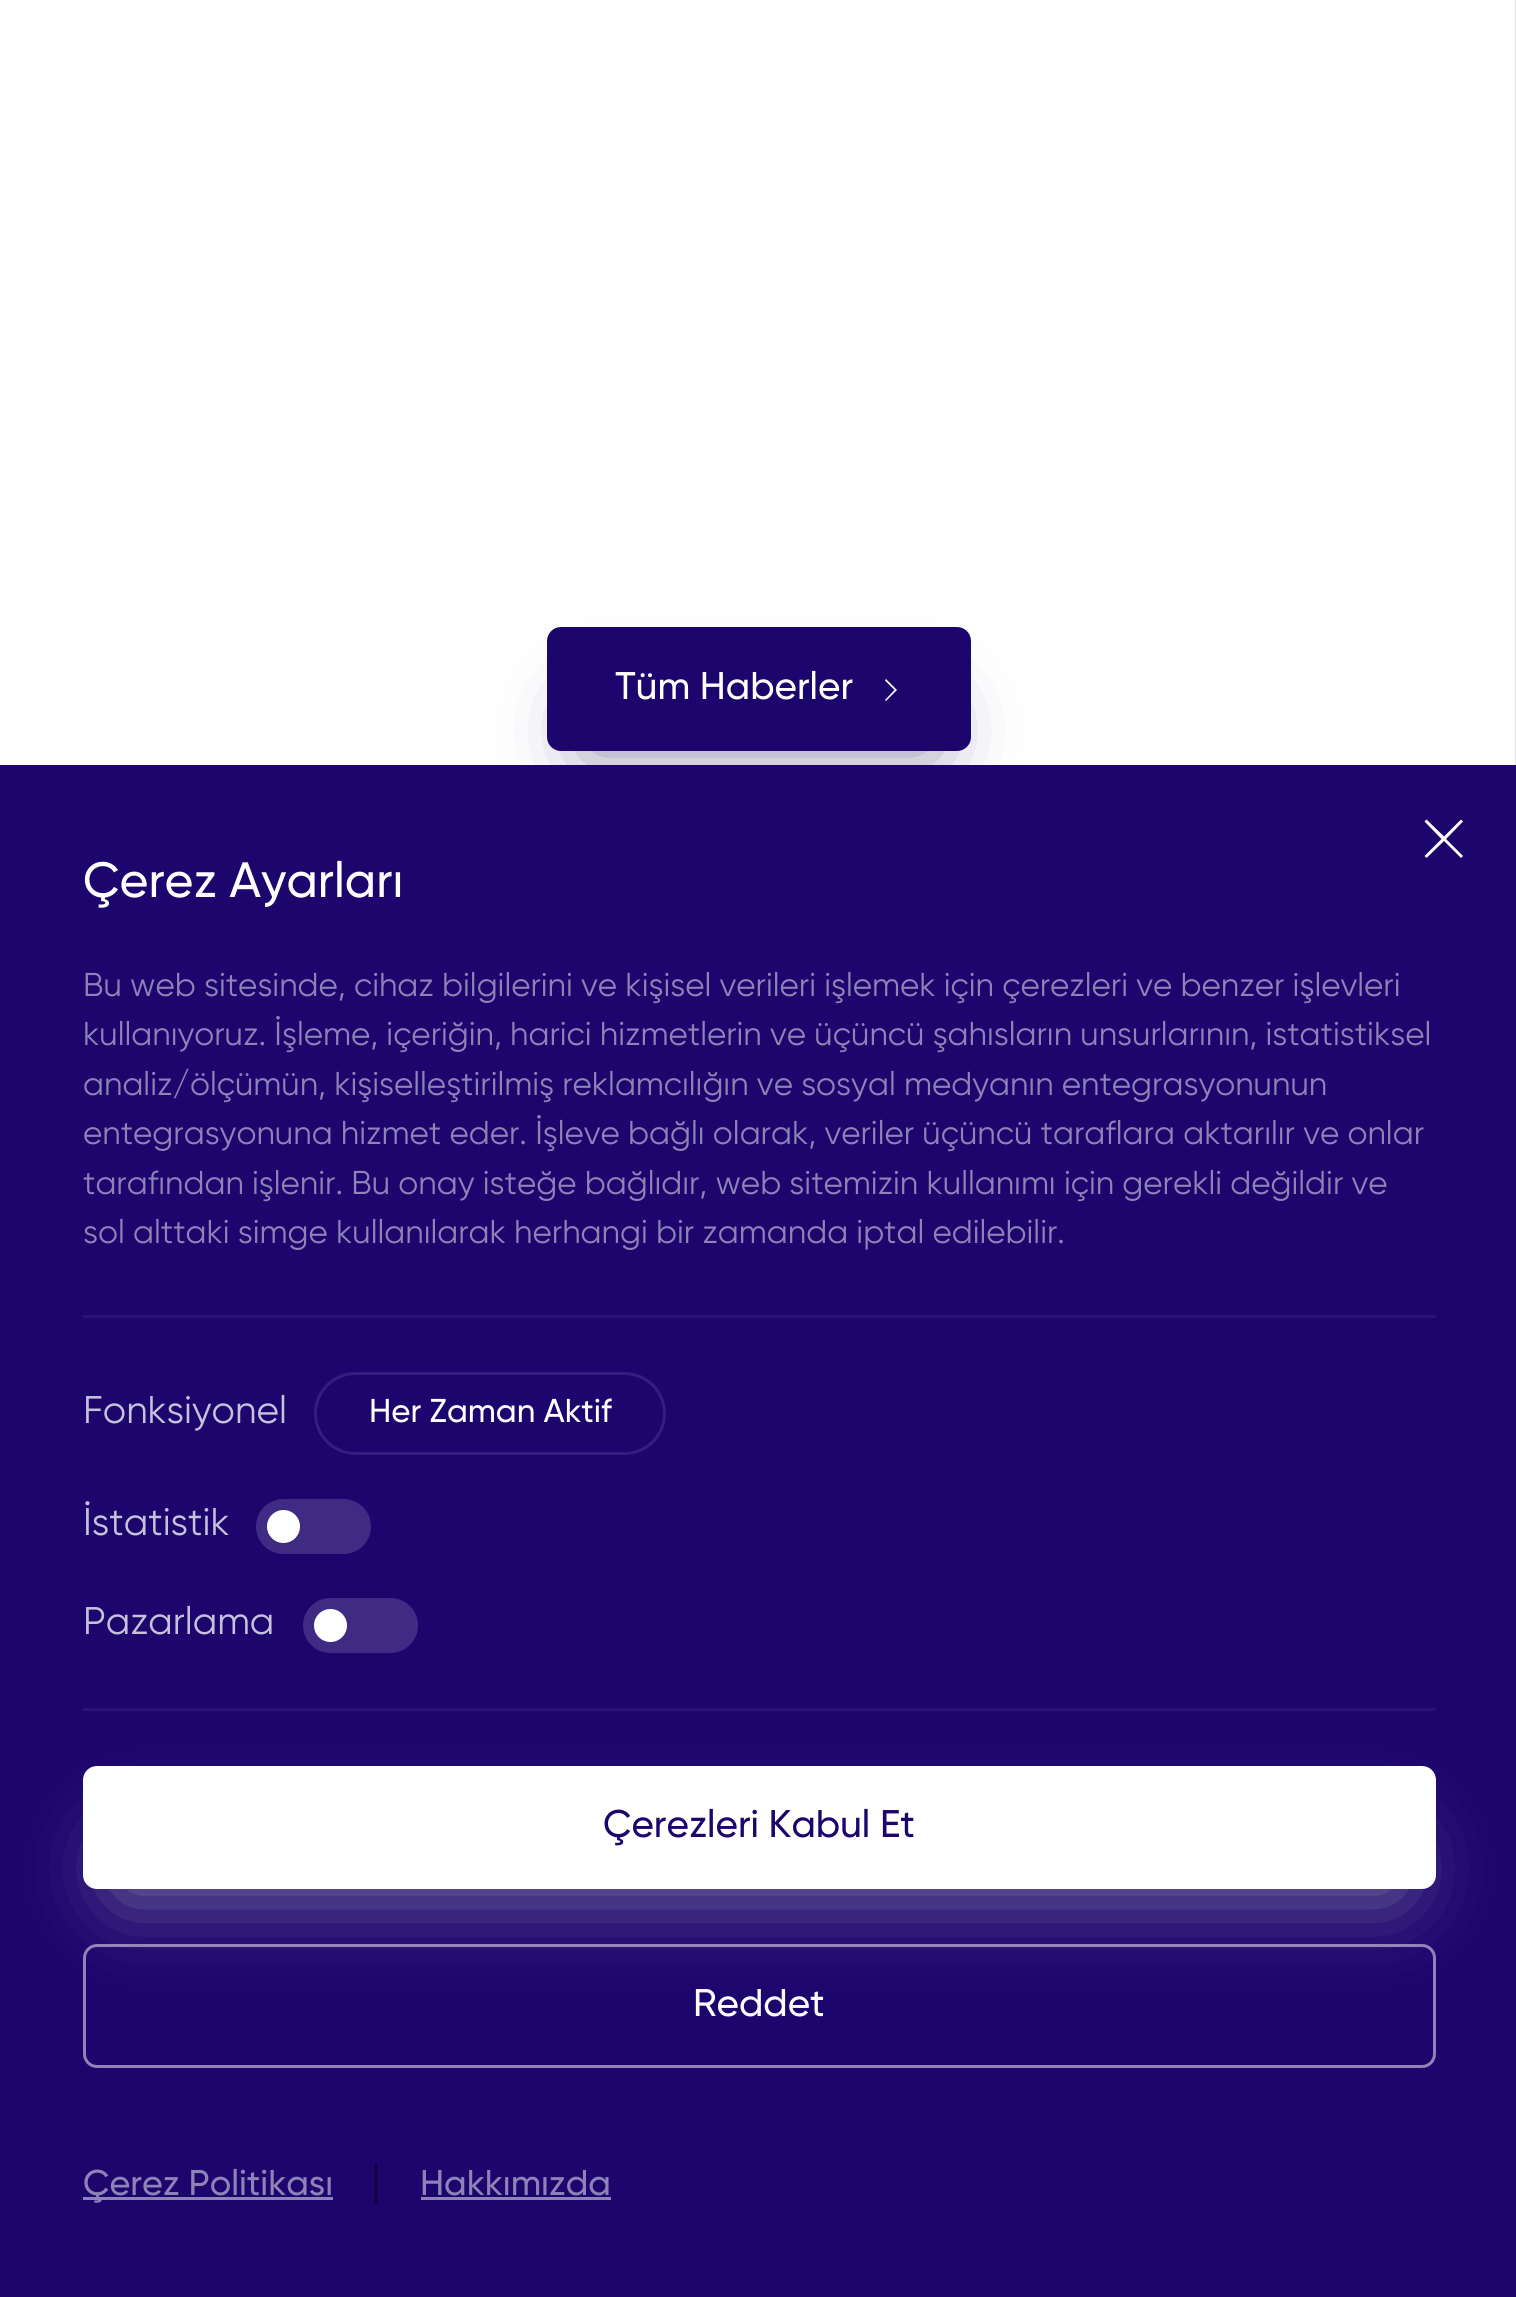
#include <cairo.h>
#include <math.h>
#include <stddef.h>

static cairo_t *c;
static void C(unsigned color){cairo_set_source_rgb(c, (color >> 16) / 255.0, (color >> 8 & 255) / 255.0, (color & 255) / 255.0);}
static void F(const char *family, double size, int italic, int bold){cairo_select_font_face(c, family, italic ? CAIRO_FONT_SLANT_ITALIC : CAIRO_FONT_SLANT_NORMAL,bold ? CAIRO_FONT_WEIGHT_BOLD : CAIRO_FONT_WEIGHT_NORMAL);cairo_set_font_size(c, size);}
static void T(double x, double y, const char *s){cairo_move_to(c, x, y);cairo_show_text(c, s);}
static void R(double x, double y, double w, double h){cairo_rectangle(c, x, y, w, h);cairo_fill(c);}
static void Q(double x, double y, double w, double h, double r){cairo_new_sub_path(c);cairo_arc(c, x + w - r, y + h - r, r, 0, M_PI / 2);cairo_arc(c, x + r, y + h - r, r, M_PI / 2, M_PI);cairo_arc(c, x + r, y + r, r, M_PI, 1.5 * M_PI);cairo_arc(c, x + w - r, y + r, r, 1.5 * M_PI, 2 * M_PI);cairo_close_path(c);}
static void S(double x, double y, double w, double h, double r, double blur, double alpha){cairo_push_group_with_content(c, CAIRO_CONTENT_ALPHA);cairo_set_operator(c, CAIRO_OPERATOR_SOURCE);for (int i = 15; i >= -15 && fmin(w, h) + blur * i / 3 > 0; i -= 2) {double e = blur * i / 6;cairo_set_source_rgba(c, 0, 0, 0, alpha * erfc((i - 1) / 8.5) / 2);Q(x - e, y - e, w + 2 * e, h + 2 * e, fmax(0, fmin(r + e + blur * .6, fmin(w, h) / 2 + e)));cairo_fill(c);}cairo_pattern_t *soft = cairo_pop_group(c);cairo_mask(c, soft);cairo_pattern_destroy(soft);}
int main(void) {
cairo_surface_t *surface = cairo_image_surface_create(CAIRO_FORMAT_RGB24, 1516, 2297);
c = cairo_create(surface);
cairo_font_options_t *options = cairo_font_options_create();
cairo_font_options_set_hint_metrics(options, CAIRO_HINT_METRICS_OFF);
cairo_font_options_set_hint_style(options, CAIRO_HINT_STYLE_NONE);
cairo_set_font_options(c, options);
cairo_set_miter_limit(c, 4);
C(0xffffff);
cairo_paint(c);
C(0x8c84aa);
S(589,710,341,41,0,41,1);
C(0x1d056e);
Q(547,627,424,124,14);
cairo_fill(c);
F("Gilroy Medium",38.5,0,0);
C(0xffffff);
T(615,699,"Tüm Haberler");
cairo_new_path(c);
cairo_move_to(c,886,701);
cairo_line_to(c,885,700);
cairo_line_to(c,894.5,690);
cairo_line_to(c,885,680.5);
cairo_line_to(c,886,679);
cairo_line_to(c,897,690);
cairo_close_path(c);
cairo_fill(c);
C(0xe0dfe1);
R(1515,0,1,765);
C(0x1d056e);
R(0,765,1516,1532);
C(0xffffff);
cairo_new_path(c);
cairo_move_to(c,1446,839);
cairo_line_to(c,1463,856);
cairo_line_to(c,1461,858);
cairo_line_to(c,1444,841);
cairo_line_to(c,1426.5,858);
cairo_line_to(c,1424.5,856);
cairo_line_to(c,1441.5,839);
cairo_line_to(c,1424.5,821.5);
cairo_line_to(c,1426.5,819.5);
cairo_line_to(c,1444,836.5);
cairo_line_to(c,1461,819.5);
cairo_line_to(c,1463,821.5);
cairo_close_path(c);
cairo_fill(c);
F("Gilroy Medium",49.5,0,0);
T(83,897,"Çerez Ayarları");
F("Gilroy",33,0,0);
C(0x8e82b7);
T(83,996,"Bu web sitesinde, cihaz bilgilerini ve kişisel verileri işlemek için çerezleri ve benzer işlevleri");
T(83,1045,"kullanıyoruz. İşleme, içeriğin, harici hizmetlerin ve üçüncü şahısların unsurlarının, istatistiksel");
T(83,1095,"analiz/ölçümün, kişiselleştirilmiş reklamcılığın ve sosyal medyanın entegrasyonunun");
T(83,1144,"entegrasyonuna hizmet eder. İşleve bağlı olarak, veriler üçüncü taraflara aktarılır ve onlar");
T(83,1194,"tarafından işlenir. Bu onay isteğe bağlıdır, web sitemizin kullanımı için gerekli değildir ve");
T(83,1243,"sol alttaki simge kullanılarak herhangi bir zamanda iptal edilebilir.");
C(0x281275);
R(83,1315,1353,3);
F("Gilroy",38.5,0,0);
C(0xc7c1db);
T(83,1423,"Fonksiyonel");
Q(315.5,1373.5,349,80,40);
C(0x341e7d);
cairo_set_line_width(c,3);
cairo_stroke(c);
F("Gilroy Medium",33,0,0);
C(0xffffff);
T(369,1422,"Her Zaman Aktif");
F("Gilroy",38.5,0,0);
C(0xc7c1db);
T(83,1535,"İstatistik");
C(0x3f2b84);
Q(256,1499,115,55,27.5);
cairo_fill(c);
C(0xffffff);
cairo_arc(c,283.5,1526.5,16.5,0,2 * M_PI);
cairo_fill(c);
C(0xc7c1db);
T(83,1634,"Pazarlama");
C(0x3f2b84);
Q(303,1598,115,55,27.5);
cairo_fill(c);
C(0xffffff);
cairo_arc(c,330.5,1625.5,16.5,0,2 * M_PI);
cairo_fill(c);
C(0x281275);
R(83,1708,1353,3);
C(0x8c84aa);
S(124,1848,1270,41,0,41,1);
C(0xffffff);
Q(83,1766,1353,123,14);
cairo_fill(c);
F("Gilroy Medium",38.5,0,0);
C(0x1d056e);
T(603,1837,"Çerezleri Kabul Et");
Q(84.5,1945.5,1350,121,12.5);
cairo_set_source_rgba(c,1,1,1,0.5);
cairo_stroke(c);
C(0xffffff);
T(693,2016,"Reddet");
C(0x8e82b7);
R(83,2197,250,3);
F("Gilroy Medium",35.75,0,0);
T(83,2195,"Çerez Politikası");
F("Gilroy",44,0,0);
C(0x0f0337);
T(371,2195,"|");
F("Gilroy Medium",35.75,0,0);
C(0x8e82b7);
T(420,2195,"Hakkımızda");
R(421,2197,190,3);
cairo_surface_write_to_png(surface, "o.png");
cairo_font_options_destroy(options);
cairo_destroy(c);
cairo_surface_destroy(surface);
return 0;
}
